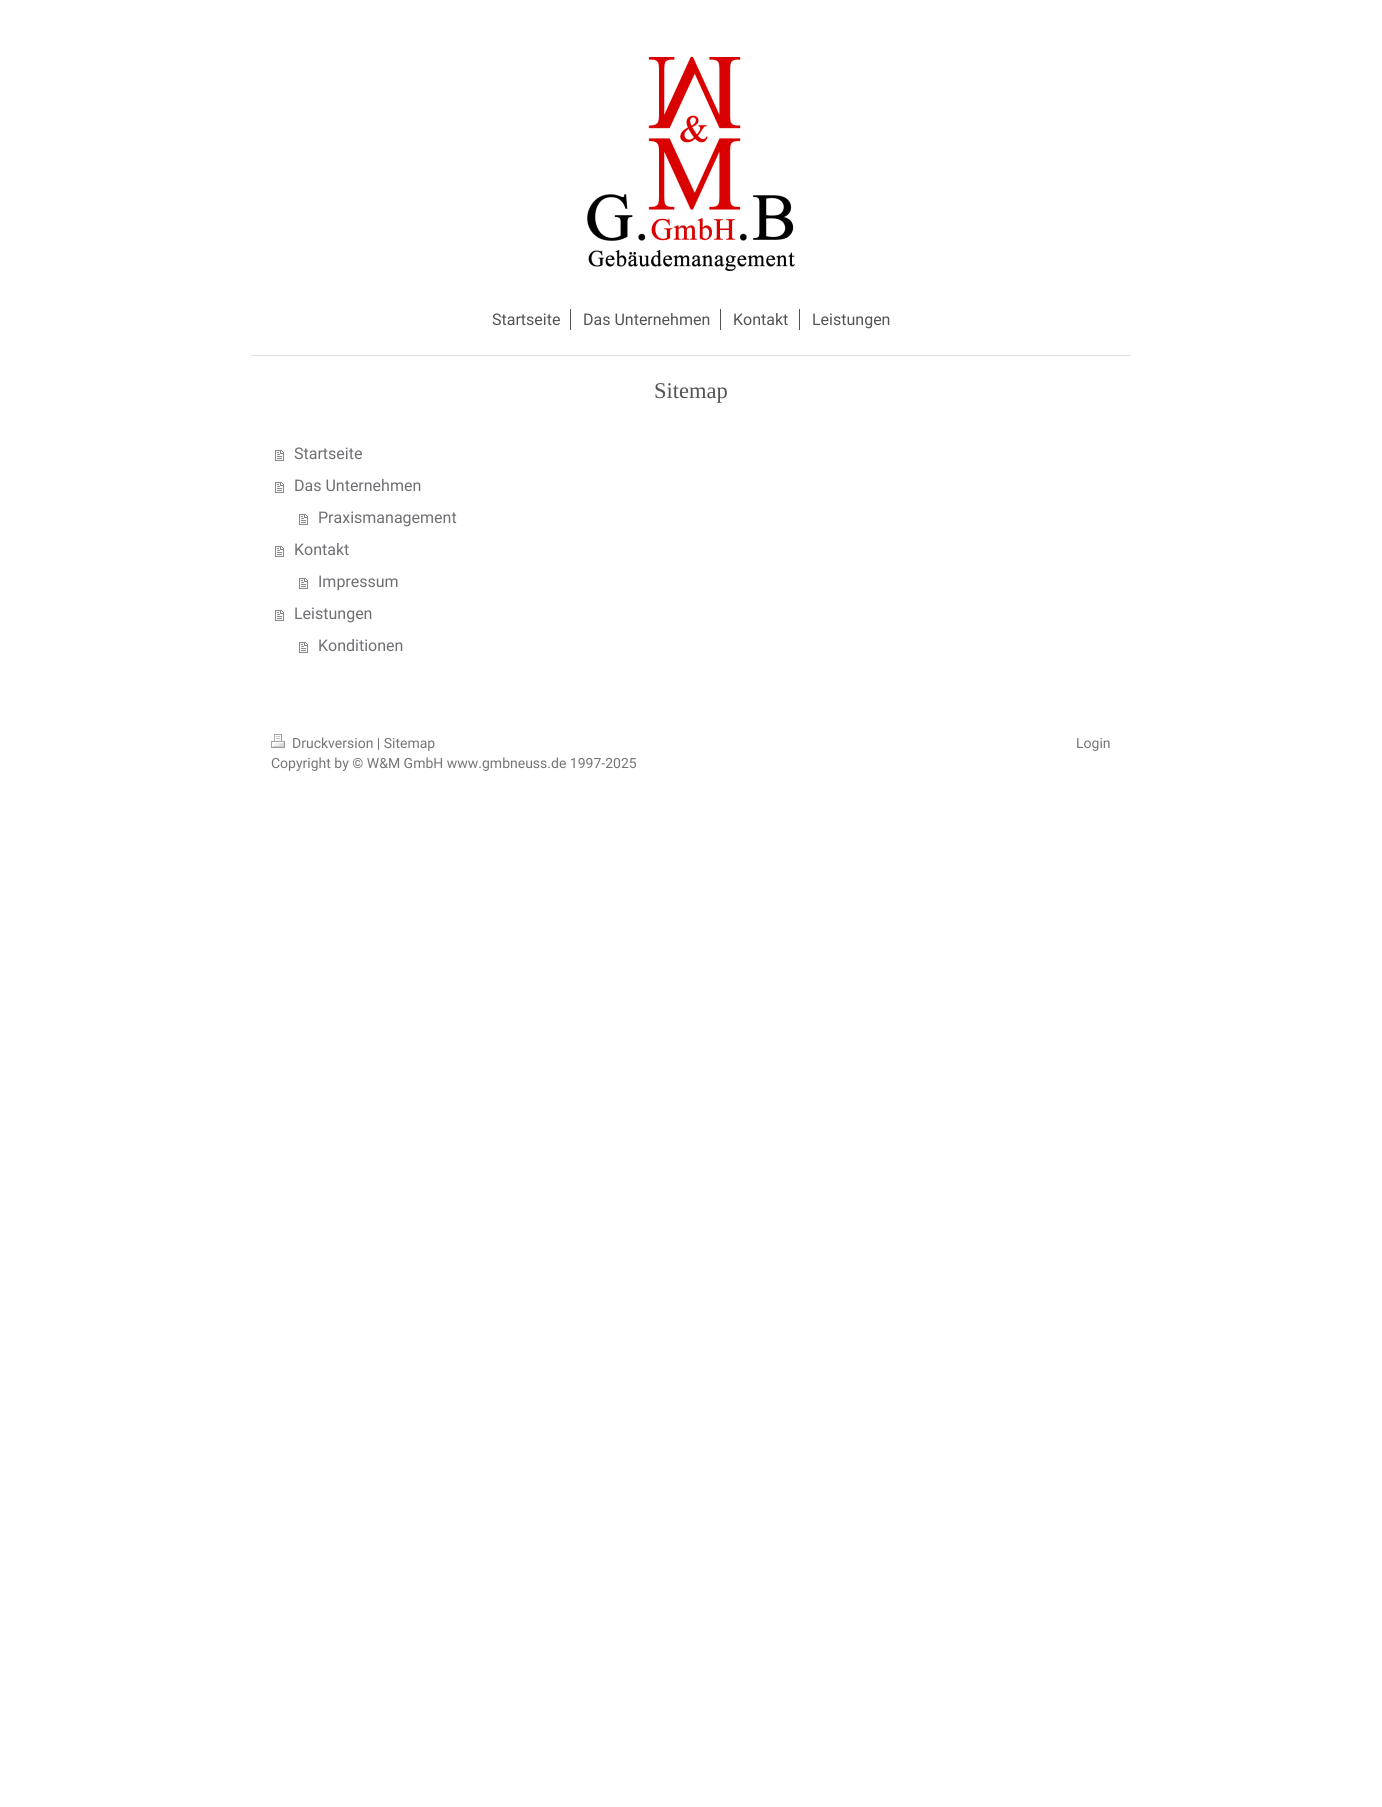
#include <cairo.h>
#include <math.h>
#include <stddef.h>

static cairo_t *c;
static void C(unsigned color){cairo_set_source_rgb(c, (color >> 16) / 255.0, (color >> 8 & 255) / 255.0, (color & 255) / 255.0);}
static void F(const char *family, double size, int italic, int bold){cairo_select_font_face(c, family, italic ? CAIRO_FONT_SLANT_ITALIC : CAIRO_FONT_SLANT_NORMAL,bold ? CAIRO_FONT_WEIGHT_BOLD : CAIRO_FONT_WEIGHT_NORMAL);cairo_set_font_size(c, size);}
static void T(double x, double y, const char *s){cairo_move_to(c, x, y);cairo_show_text(c, s);}
static void R(double x, double y, double w, double h){cairo_rectangle(c, x, y, w, h);cairo_fill(c);}
static void I(const char *path, double x, double y, double w, double h){cairo_surface_t *image = cairo_image_surface_create_from_png(path);cairo_save(c);cairo_set_source_surface(c, image, x, y);cairo_rectangle(c, x, y, w, h);cairo_fill(c);cairo_restore(c);cairo_surface_destroy(image);}
int main(void) {
cairo_surface_t *surface = cairo_image_surface_create(CAIRO_FORMAT_RGB24, 1382, 1807);
c = cairo_create(surface);
cairo_font_options_t *options = cairo_font_options_create();
cairo_font_options_set_hint_metrics(options, CAIRO_HINT_METRICS_OFF);
cairo_font_options_set_hint_style(options, CAIRO_HINT_STYLE_NONE);
cairo_set_font_options(c, options);
cairo_set_miter_limit(c, 4);
C(0xffffff);
cairo_paint(c);
I("1.png",587,57,208,214);
C(0xdddddd);
R(251,355,880,1);
C(0x535353);
R(570,309,1,21);
F("Roboto",16,0,0);
T(492,325,"Startseite");
R(720,309,1,21);
T(583,325,"Das Unternehmen");
R(799,309,1,21);
T(733,325,"Kontakt");
T(812,325,"Leistungen");
F("Liberation Serif",22.5,0,0);
T(654,398,"Sitemap");
I("2.png",275,450,9,11);
F("Roboto",16,0,0);
C(0x6e6f73);
T(294,459,"Startseite");
I("2.png",275,482,9,11);
T(294,491,"Das Unternehmen");
I("2.png",299,514,9,11);
T(318,523,"Praxismanagement");
I("2.png",275,546,9,11);
T(294,555,"Kontakt");
I("2.png",299,578,9,11);
T(318,587,"Impressum");
I("2.png",275,610,9,11);
T(294,619,"Leistungen");
I("2.png",299,642,9,11);
T(318,651,"Konditionen");
I("3.png",271,734,14,14);
F("Roboto",14,0,0);
C(0x757575);
T(292,748,"Druckversion | Sitemap");
T(271,768,"Copyright by © W&M GmbH www.gmbneuss.de 1997-2025");
T(1076,748,"Login");
cairo_surface_write_to_png(surface, "o.png");
cairo_font_options_destroy(options);
cairo_destroy(c);
cairo_surface_destroy(surface);
return 0;
}
